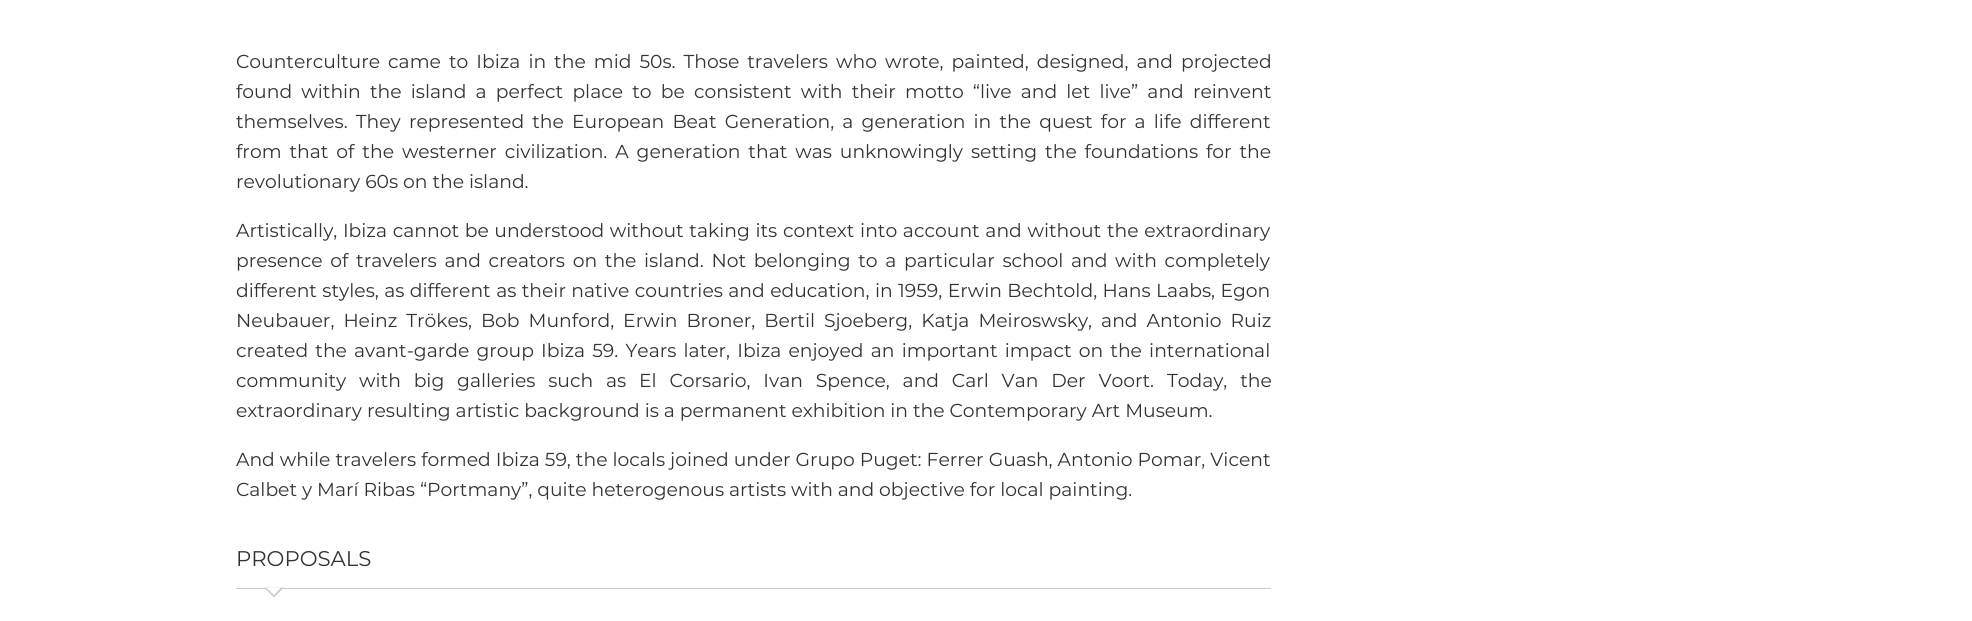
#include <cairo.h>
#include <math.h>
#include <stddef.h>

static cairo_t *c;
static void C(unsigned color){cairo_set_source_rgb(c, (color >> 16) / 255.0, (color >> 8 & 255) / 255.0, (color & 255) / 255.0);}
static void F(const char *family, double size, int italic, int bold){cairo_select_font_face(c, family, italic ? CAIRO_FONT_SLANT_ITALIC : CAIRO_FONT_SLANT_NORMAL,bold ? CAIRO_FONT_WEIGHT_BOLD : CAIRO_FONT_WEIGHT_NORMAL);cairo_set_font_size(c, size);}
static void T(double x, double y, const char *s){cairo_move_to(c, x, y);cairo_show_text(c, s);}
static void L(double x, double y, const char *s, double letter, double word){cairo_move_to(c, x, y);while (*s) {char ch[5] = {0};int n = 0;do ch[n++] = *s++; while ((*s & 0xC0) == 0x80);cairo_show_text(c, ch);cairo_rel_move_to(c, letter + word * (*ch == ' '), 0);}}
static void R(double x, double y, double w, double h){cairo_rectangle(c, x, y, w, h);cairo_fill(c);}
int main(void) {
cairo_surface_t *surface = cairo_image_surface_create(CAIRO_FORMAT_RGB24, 1972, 621);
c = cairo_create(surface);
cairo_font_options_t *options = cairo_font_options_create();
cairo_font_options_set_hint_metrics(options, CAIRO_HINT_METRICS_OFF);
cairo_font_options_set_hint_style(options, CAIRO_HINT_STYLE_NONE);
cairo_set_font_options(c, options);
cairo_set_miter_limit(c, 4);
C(0xffffff);
cairo_paint(c);
F("Montserrat",18.75,0,0);
C(0x333333);
L(236,68,"Counterculture came to Ibiza in the mid 50s. Those travelers who wrote, painted, designed, and projected",0,3.1);
L(236,98,"found within the island a perfect place to be consistent with their motto “live and let live” and reinvent",0,4.25);
L(236,128,"themselves. They represented the European Beat Generation, a generation in the quest for a life different",0,3.25);
L(236,158,"from that of the westerner civilization. A generation that was unknowingly setting the foundations for the",0,3);
T(236,188,"revolutionary 60s on the island.");
L(236,237,"Artistically, Ibiza cannot be understood without taking its context into account and without the extraordinary",0,.75);
L(236,267,"presence of travelers and creators on the island. Not belonging to a particular school and with completely",0,2.75);
L(236,297,"different styles, as different as their native countries and education, in 1959, Erwin Bechtold, Hans Laabs, Egon",0,.5);
L(236,327,"Neubauer, Heinz Trökes, Bob Munford, Erwin Broner, Bertil Sjoeberg, Katja Meiroswsky, and Antonio Ruiz",0,4.1);
L(236,357,"created the avant-garde group Ibiza 59. Years later, Ibiza enjoyed an important impact on the international",0,2.25);
L(236,387,"community with big galleries such as El Corsario, Ivan Spence, and Carl Van Der Voort. Today, the",0,7.9);
T(236,417,"extraordinary resulting artistic background is a permanent exhibition in the Contemporary Art Museum.");
L(236,466,"And while travelers formed Ibiza 59, the locals joined under Grupo Puget: Ferrer Guash, Antonio Pomar, Vicent",0,.1);
T(236,496,"Calbet y Marí Ribas “Portmany”, quite heterogenous artists with and objective for local painting.");
C(0xcccccc);
R(236,588,1035,1);
F("Montserrat",21.25,0,0);
C(0x333333);
T(236,566,"PROPOSALS");
C(0xcccccc);
cairo_new_path(c);
cairo_move_to(c,264,587.5);
cairo_line_to(c,284,587.5);
cairo_line_to(c,274,597.5);
cairo_close_path(c);
cairo_fill(c);
C(0xffffff);
cairo_new_path(c);
cairo_move_to(c,266,587.5);
cairo_line_to(c,281,587.5);
cairo_line_to(c,274,595);
cairo_close_path(c);
cairo_fill(c);
cairo_surface_write_to_png(surface, "o.png");
cairo_font_options_destroy(options);
cairo_destroy(c);
cairo_surface_destroy(surface);
return 0;
}
